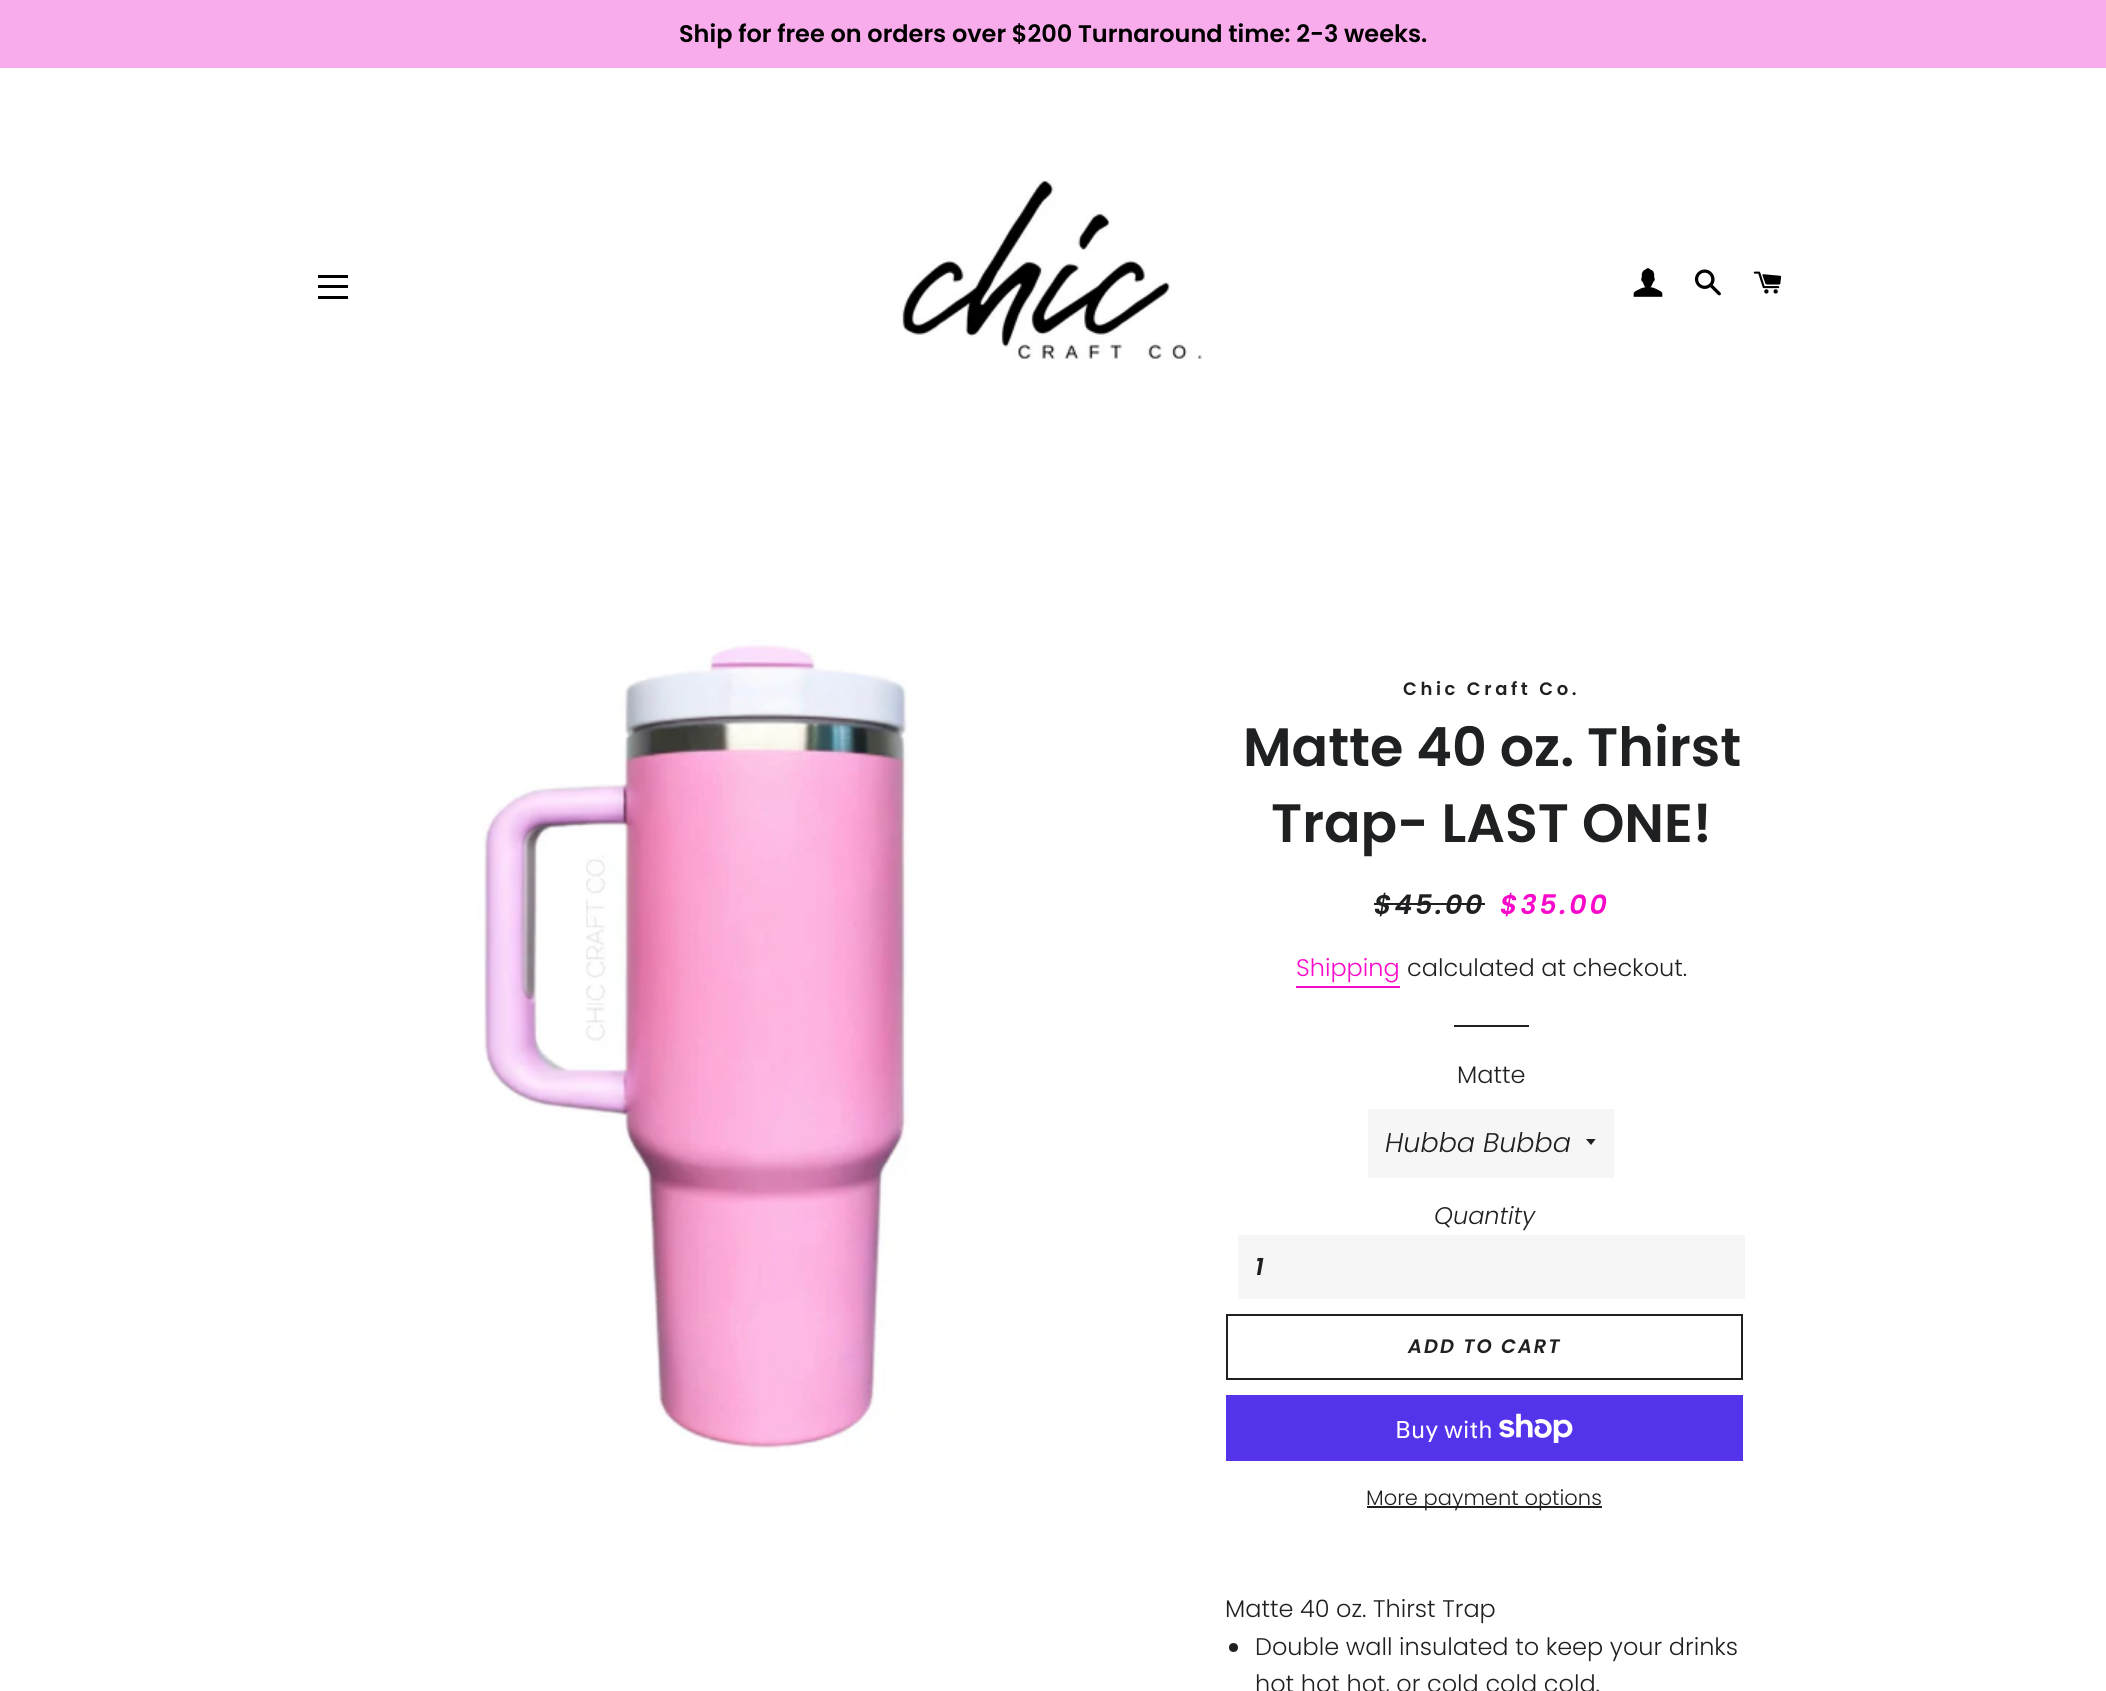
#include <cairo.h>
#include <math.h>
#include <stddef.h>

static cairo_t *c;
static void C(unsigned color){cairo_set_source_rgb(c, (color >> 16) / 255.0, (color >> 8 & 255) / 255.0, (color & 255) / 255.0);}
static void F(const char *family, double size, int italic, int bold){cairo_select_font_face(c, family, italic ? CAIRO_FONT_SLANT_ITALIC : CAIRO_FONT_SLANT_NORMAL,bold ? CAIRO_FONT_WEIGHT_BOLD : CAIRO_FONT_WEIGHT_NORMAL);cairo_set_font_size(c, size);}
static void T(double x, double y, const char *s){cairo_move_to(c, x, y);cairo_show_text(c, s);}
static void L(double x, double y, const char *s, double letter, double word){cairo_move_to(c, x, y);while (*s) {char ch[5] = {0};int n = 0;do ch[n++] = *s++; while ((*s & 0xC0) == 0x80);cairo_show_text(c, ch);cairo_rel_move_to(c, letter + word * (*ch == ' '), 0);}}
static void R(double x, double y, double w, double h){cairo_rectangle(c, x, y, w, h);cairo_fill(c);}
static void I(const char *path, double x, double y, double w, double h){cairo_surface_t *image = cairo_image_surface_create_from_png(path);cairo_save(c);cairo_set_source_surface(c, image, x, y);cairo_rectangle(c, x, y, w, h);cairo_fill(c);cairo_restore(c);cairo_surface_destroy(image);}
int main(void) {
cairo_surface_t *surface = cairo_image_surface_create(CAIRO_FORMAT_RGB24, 2106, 1691);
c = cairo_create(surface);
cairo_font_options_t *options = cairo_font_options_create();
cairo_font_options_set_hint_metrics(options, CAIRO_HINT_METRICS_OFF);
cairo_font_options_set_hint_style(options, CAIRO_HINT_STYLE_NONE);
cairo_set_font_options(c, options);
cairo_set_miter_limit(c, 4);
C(0xffffff);
cairo_paint(c);
C(0xf9aceb);
R(0,0,2106,68);
F("Poppins SemiBold",24,0,0);
C(0x000000);
T(679,42,"Ship for free on orders over $200 Turnaround time: 2-3 weeks.");
R(318,275,30,3);
R(318,285,30,3);
R(318,296,30,3);
I("1.png",901,180,302,180);
I("2.png",1633,268,30,29);
I("3.png",1694,269,27,27);
I("4.png",1753,271,29,23);
I("5.png",311,623,847,847);
F("Poppins SemiBold",18,0,0);
C(0x1f2021);
L(1403,695,"Chic Craft Co.",3.6,0);
F("Poppins SemiBold",54,0,0);
T(1243,766,"Matte 40 oz. Thirst");
T(1271,842,"Trap- LAST ONE!");
F("Poppins SemiBold",27,1,0);
L(1374,914,"$45.00",2.75,0);
R(1374,903,111,2);
C(0xf909ca);
L(1500,914,"$35.00",2.75,0);
F("Poppins Light",24,0,0);
T(1296,976,"Shipping");
R(1296,986,104,2);
C(0x1f2021);
T(1407,976,"calculated at checkout.");
R(1454,1025,75,2);
T(1457,1083,"Matte");
C(0xf6f6f6);
R(1368,1109,246,69);
cairo_save(c);
cairo_rectangle(c,1586,1139,12,7);
cairo_clip(c);
C(0x1f2021);
cairo_new_path(c);
cairo_move_to(c,1585.5,1138.5);
cairo_line_to(c,1591,1145);
cairo_line_to(c,1596,1138.5);
cairo_close_path(c);
cairo_fill(c);
cairo_restore(c);
F("Poppins Light",27,1,0);
C(0x1f2021);
T(1385,1152,"Hubba Bubba");
F("Poppins Light",24,1,0);
T(1434,1224,"Quantity");
C(0xf6f6f6);
R(1238,1235,507,64);
F("Poppins SemiBold",24,1,0);
C(0x1f2021);
L(1255,1275,"1",2,0);
cairo_rectangle(c,1227,1315,515,64);
cairo_stroke(c);
F("Poppins SemiBold",19.5,1,0);
L(1408,1353,"ADD TO CART",2,0);
C(0x5433eb);
R(1226,1395,517,66);
F("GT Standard",24,0,0);
C(0xffffff);
T(1395,1438,"Buy with");
I("6.png",1499,1413,74,30);
C(0x1f2021);
R(1367,1506,235,2);
F("Poppins Light",21,0,0);
T(1366,1505,"More payment options");
F("Poppins Light",24,0,0);
T(1225,1617,"Matte 40 oz. Thirst Trap");
cairo_new_path(c);
cairo_arc(c,1233.5,1647.5,4.5,0,2 * M_PI);
cairo_fill(c);
T(1255,1655,"Double wall insulated to keep your drinks");
T(1255,1692,"hot hot hot, or cold cold cold.");
cairo_surface_write_to_png(surface, "o.png");
cairo_font_options_destroy(options);
cairo_destroy(c);
cairo_surface_destroy(surface);
return 0;
}
